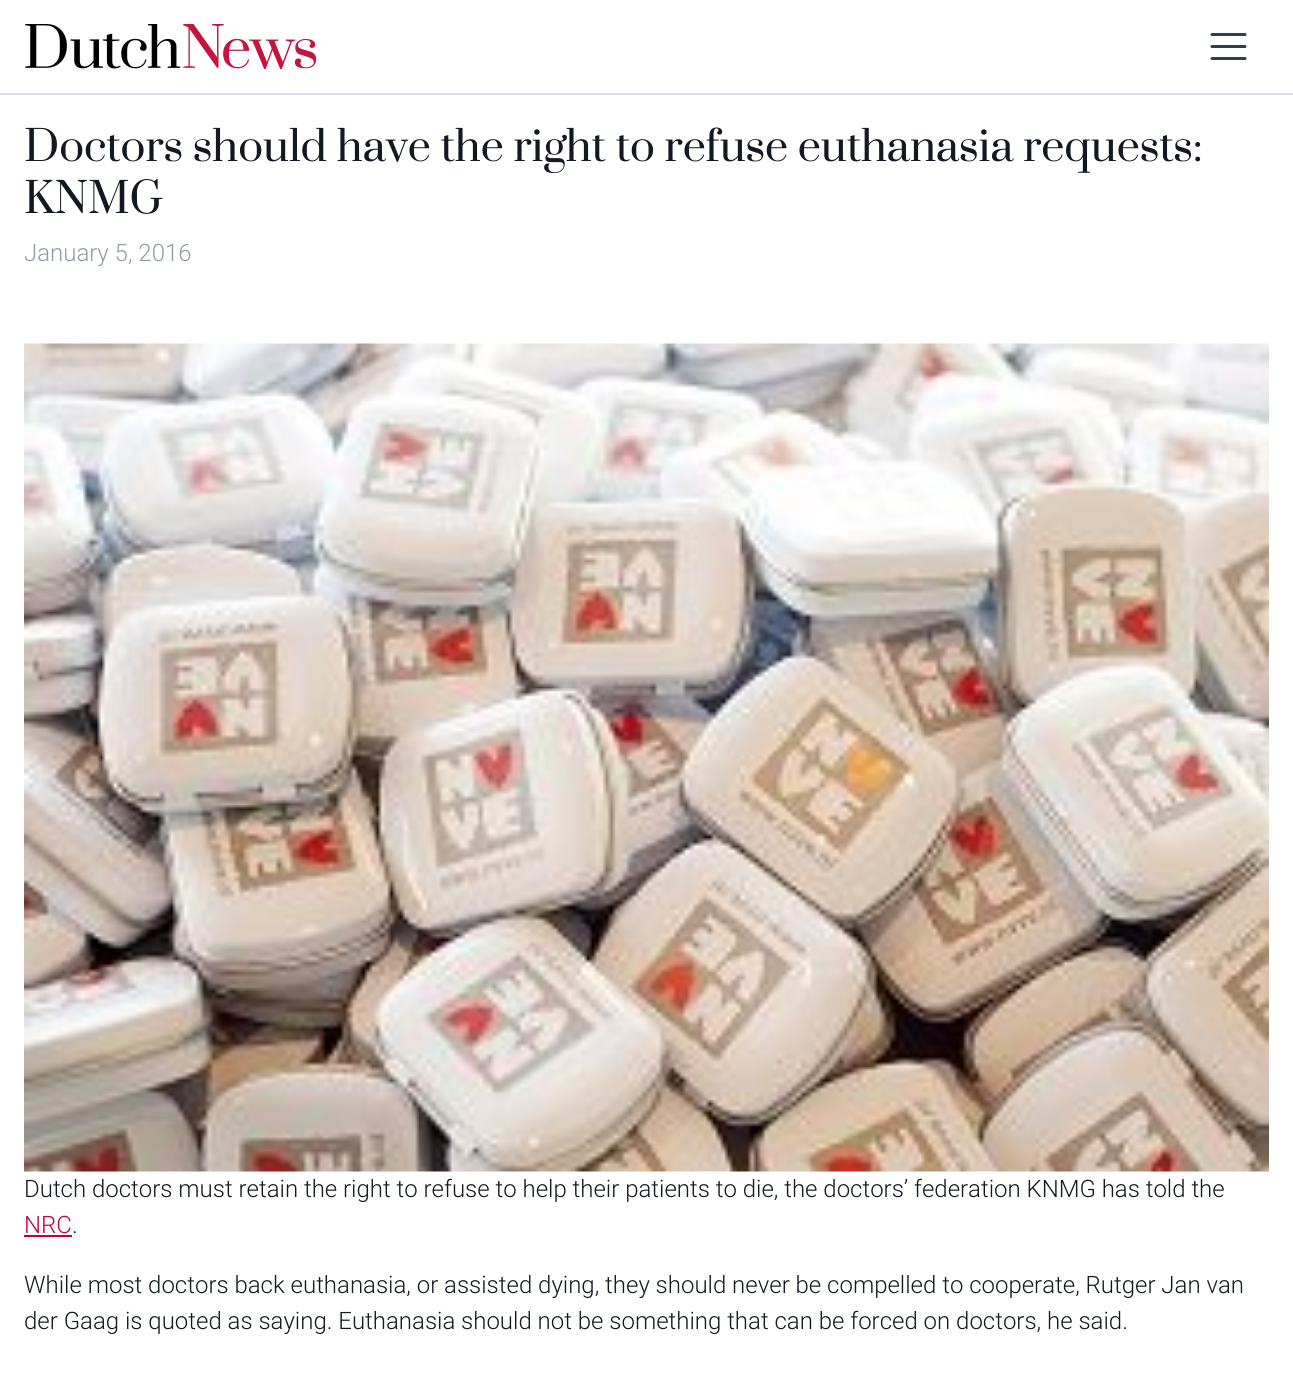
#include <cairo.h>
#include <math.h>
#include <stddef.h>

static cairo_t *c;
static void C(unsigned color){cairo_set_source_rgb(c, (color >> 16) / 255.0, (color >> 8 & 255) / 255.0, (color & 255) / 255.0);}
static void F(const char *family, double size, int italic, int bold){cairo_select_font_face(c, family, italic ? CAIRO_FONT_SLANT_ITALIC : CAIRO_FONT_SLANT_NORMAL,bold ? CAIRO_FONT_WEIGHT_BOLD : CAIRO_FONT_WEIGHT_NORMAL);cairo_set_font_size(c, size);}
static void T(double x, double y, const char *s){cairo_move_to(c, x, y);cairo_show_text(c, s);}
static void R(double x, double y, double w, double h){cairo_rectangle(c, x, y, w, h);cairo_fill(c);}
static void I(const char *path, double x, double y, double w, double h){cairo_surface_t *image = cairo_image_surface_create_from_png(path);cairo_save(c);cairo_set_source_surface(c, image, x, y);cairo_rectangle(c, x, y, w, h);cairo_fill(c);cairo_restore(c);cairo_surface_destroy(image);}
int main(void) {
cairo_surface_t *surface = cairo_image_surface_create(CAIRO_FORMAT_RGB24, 1293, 1382);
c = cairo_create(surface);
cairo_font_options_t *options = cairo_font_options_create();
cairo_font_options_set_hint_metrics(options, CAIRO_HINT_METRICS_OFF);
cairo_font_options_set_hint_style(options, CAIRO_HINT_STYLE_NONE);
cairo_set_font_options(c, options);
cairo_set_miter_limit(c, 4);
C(0xffffff);
cairo_paint(c);
C(0xd8e1e9);
R(0,93,1293,2);
I("1.png",25,24,292,45);
cairo_new_path(c);
cairo_move_to(c,1212,34.5);
cairo_line_to(c,1245,34.5);
cairo_move_to(c,1212,46.5);
cairo_line_to(c,1245,46.5);
cairo_move_to(c,1212,58.5);
cairo_line_to(c,1245,58.5);
C(0x323f4b);
cairo_set_line_width(c,3);
cairo_set_line_cap(c,CAIRO_LINE_CAP_ROUND);
cairo_stroke(c);
F("Suranna",52.4,0,0);
C(0x131920);
T(24,161,"Doctors should have the right to refuse euthanasia requests:");
T(24,213,"KNMG");
F("Roboto Light",24,0,0);
C(0x919ba6);
T(24,261,"January 5, 2016");
I("2.png",24,343,1245,829);
C(0x131920);
T(24,1197,"Dutch doctors must retain the right to refuse to help their patients to die, the doctors’ federation KNMG has told the");
C(0xc3003d);
T(24,1233,"NRC");
R(24,1235,48,2);
C(0x131920);
T(72,1233,".");
T(24,1293,"While most doctors back euthanasia, or assisted dying, they should never be compelled to cooperate, Rutger Jan van");
T(24,1329,"der Gaag is quoted as saying. Euthanasia should not be something that can be forced on doctors, he said.");
cairo_surface_write_to_png(surface, "o.png");
cairo_font_options_destroy(options);
cairo_destroy(c);
cairo_surface_destroy(surface);
return 0;
}
